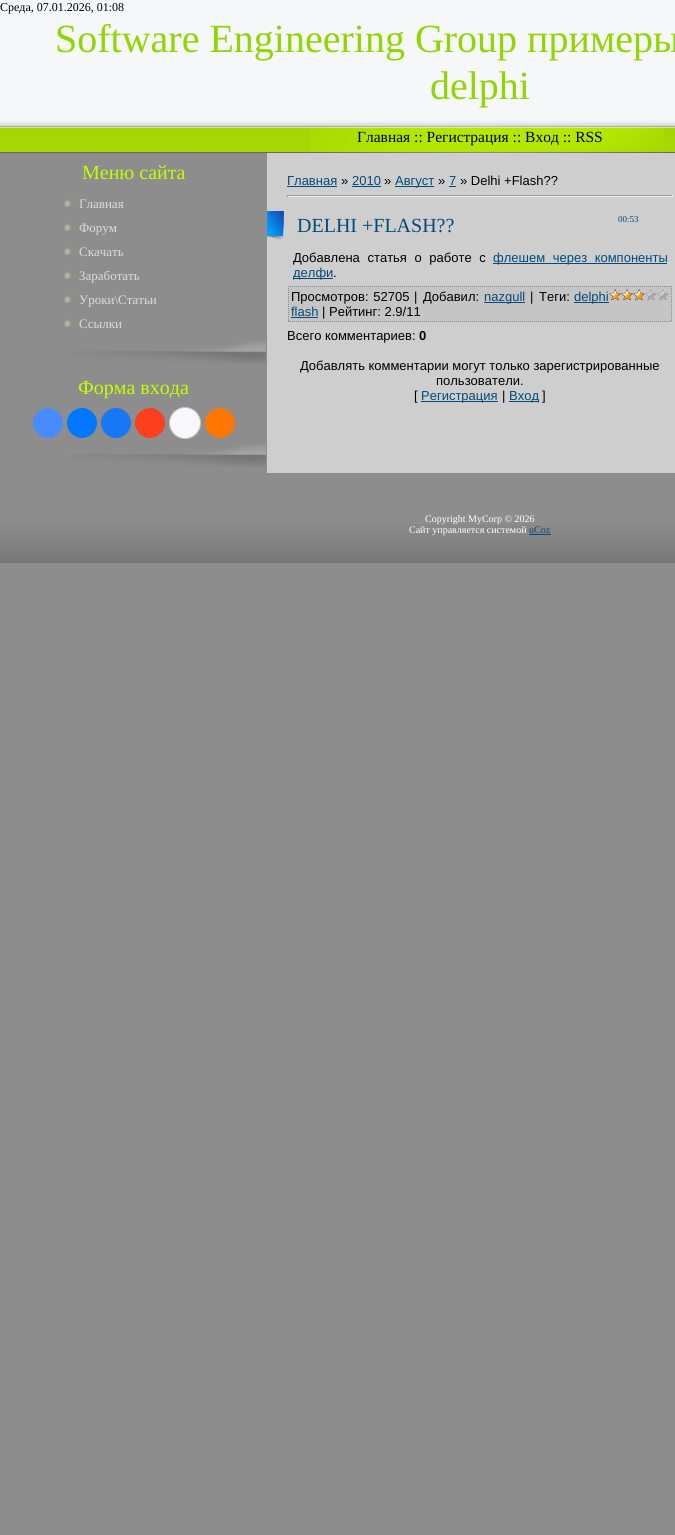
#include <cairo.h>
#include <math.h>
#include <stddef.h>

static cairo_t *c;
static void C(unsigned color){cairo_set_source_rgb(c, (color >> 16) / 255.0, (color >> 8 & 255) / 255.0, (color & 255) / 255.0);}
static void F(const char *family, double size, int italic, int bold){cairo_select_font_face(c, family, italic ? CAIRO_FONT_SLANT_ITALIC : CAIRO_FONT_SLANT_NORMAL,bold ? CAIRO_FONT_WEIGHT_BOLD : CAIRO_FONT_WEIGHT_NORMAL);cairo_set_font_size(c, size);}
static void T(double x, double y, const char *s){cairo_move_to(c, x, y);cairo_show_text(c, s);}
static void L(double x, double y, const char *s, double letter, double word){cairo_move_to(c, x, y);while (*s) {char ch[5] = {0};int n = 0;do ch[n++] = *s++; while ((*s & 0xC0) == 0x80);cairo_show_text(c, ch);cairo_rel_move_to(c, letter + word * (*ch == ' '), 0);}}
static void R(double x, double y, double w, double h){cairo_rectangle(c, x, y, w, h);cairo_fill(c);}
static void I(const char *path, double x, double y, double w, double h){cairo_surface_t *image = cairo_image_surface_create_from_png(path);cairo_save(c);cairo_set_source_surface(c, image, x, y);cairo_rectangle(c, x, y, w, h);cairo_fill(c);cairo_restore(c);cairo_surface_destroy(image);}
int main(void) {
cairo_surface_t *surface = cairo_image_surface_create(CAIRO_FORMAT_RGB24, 675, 1535);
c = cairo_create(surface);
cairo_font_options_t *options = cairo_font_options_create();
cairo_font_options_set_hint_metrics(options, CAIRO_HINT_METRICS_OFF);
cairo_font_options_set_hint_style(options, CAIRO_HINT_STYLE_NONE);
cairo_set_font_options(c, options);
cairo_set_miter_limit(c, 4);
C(0x8d8d8d);
cairo_paint(c);
C(0xf5f7f8);
R(0,0,675,120);
F("Liberation Serif",12,0,0);
C(0x000000);
T(0,11,"Среда, 07.01.2026, 01:08");
F("Liberation Serif",40,0,0);
C(0x92d503);
T(55,52,"Software Engineering Group примеры");
T(430,99,"delphi");
I("1.png",0,120,675,33);
I("2.png",310,126,355,27);
F("Liberation Serif",15.5,0,0);
C(0x000000);
T(357,142,"Главная :: Регистрация :: Вход :: RSS");
F("Liberation Serif",20,0,0);
C(0xc2ff00);
T(82,179,"Меню сайта");
I("3.png",63,199,9,9);
F("Liberation Serif",13,0,0);
C(0xdbdbdb);
T(79,208,"Главная");
I("3.png",63,223,9,9);
T(79,232,"Форум");
I("3.png",63,247,9,9);
T(79,256,"Скачать");
I("3.png",63,271,9,9);
T(79,280,"Заработать");
I("3.png",63,295,9,9);
T(79,304,"Уроки\\Статьи");
I("3.png",63,319,9,9);
T(79,328,"Ссылки");
I("4.png",71,341,195,23);
F("Liberation Serif",20,0,0);
C(0xc2ff00);
T(78,394,"Форма входа");
C(0x498bfa);
cairo_new_path(c);
cairo_arc(c,48,423,15,0,2 * M_PI);
cairo_fill(c);
C(0x0077ff);
cairo_arc(c,82,423,15,0,2 * M_PI);
cairo_fill(c);
C(0x1877f2);
cairo_arc(c,116,423,15,0,2 * M_PI);
cairo_fill(c);
C(0xfc3f1d);
cairo_arc(c,150,423,15,0,2 * M_PI);
cairo_fill(c);
C(0xf8f8fc);
cairo_arc(c,185,423,15.5,0,2 * M_PI);
cairo_fill_preserve(c);
C(0xc4c4c4);
cairo_set_line_width(c,1);
cairo_stroke(c);
C(0xff7700);
cairo_arc(c,220,423,15,0,2 * M_PI);
cairo_fill(c);
I("4.png",71,444,195,23);
C(0xcecece);
R(267,153,408,320);
F("Liberation Sans",13,0,0);
C(0x034b78);
T(287,185,"Главная");
R(287,186,50,1);
C(0x000000);
T(341,185,"»");
C(0x034b78);
T(352,185,"2010");
R(352,186,29,1);
C(0x000000);
T(384,185,"»");
C(0x034b78);
R(395,186,39,1);
T(395,185,"Август");
C(0x000000);
T(438,185,"»");
C(0x034b78);
T(449,185,"7");
R(449,186,7,1);
C(0x000000);
T(460,185,"» Delhi +Flash?\077");
C(0x9f9f9f);
R(287,195,386,1);
C(0xeeeeee);
R(672,195,1,2);
R(287,196,386,1);
C(0x9f9f9f);
R(287,195,1,2);
I("5.png",267,211,17,29);
F("Liberation Serif",20,0,0);
C(0x034b78);
T(297,232,"DELHI +FLASH?\077");
F("Liberation Serif",9,0,0);
T(618,222,"00:53");
F("Liberation Sans",13,0,0);
C(0x000000);
L(293,262,"Добавлена статья о работе с",0,4);
C(0x034b78);
R(493,263,174,1);
L(493,262,"флешем через компоненты",0,4);
R(293,278,40,1);
T(293,277,"делфи");
C(0x000000);
T(333,277,".");
C(0xc5c5c5);
R(288,286,384,36);
cairo_new_path(c);
cairo_move_to(c,288,286.5);
cairo_line_to(c,672,286.5);
C(0x8d8d8d);
cairo_set_dash(c,(double[]){1,1},2,0);
cairo_stroke(c);
cairo_new_path(c);
cairo_move_to(c,671.5,286);
cairo_line_to(c,671.5,322);
cairo_stroke(c);
cairo_new_path(c);
cairo_move_to(c,288,321.5);
cairo_line_to(c,672,321.5);
cairo_stroke(c);
cairo_new_path(c);
cairo_move_to(c,288.5,286);
cairo_line_to(c,288.5,322);
cairo_stroke(c);
C(0x000000);
T(291,301,"Просмотров");
L(365,301,": 52705 |",0,1);
T(423,301,"Добавил:");
C(0x034b78);
R(484,302,41,1);
T(484,301,"nazgull");
C(0x000000);
T(530,301,"|");
T(539,301,"Теги:");
C(0x034b78);
R(574,302,35,1);
T(574,301,"delphi");
I("6.png",609,289,60,12);
I("7.png",609,289,35,12);
T(291,316,"flash");
R(291,317,27,1);
C(0x000000);
T(322,316,"| Рейтинг: 2.9/11");
T(287,340,"Всего комментариев:");
F("Liberation Sans",13,0,1);
T(419,340,"0");
F("Liberation Sans",13,0,0);
T(300,370,"Добавлять комментарии могут только зарегистрированные");
T(436,385,"пользователи.");
T(414,400,"[");
C(0x034b78);
R(421,401,77,1);
T(421,400,"Регистрация");
C(0x000000);
T(502,400,"|");
C(0x034b78);
R(509,401,30,1);
T(509,400,"Вход");
C(0x000000);
T(542,400,"]");
I("8.png",0,524,675,39);
F("Liberation Serif",10,0,0);
C(0xffffff);
T(425,522,"Copyright MyCorp © 2026");
T(409,533,"Сайт управляется системой");
C(0x034b78);
R(529,534,22,1);
T(529,533,"uCoz");
cairo_surface_write_to_png(surface, "o.png");
cairo_font_options_destroy(options);
cairo_destroy(c);
cairo_surface_destroy(surface);
return 0;
}
